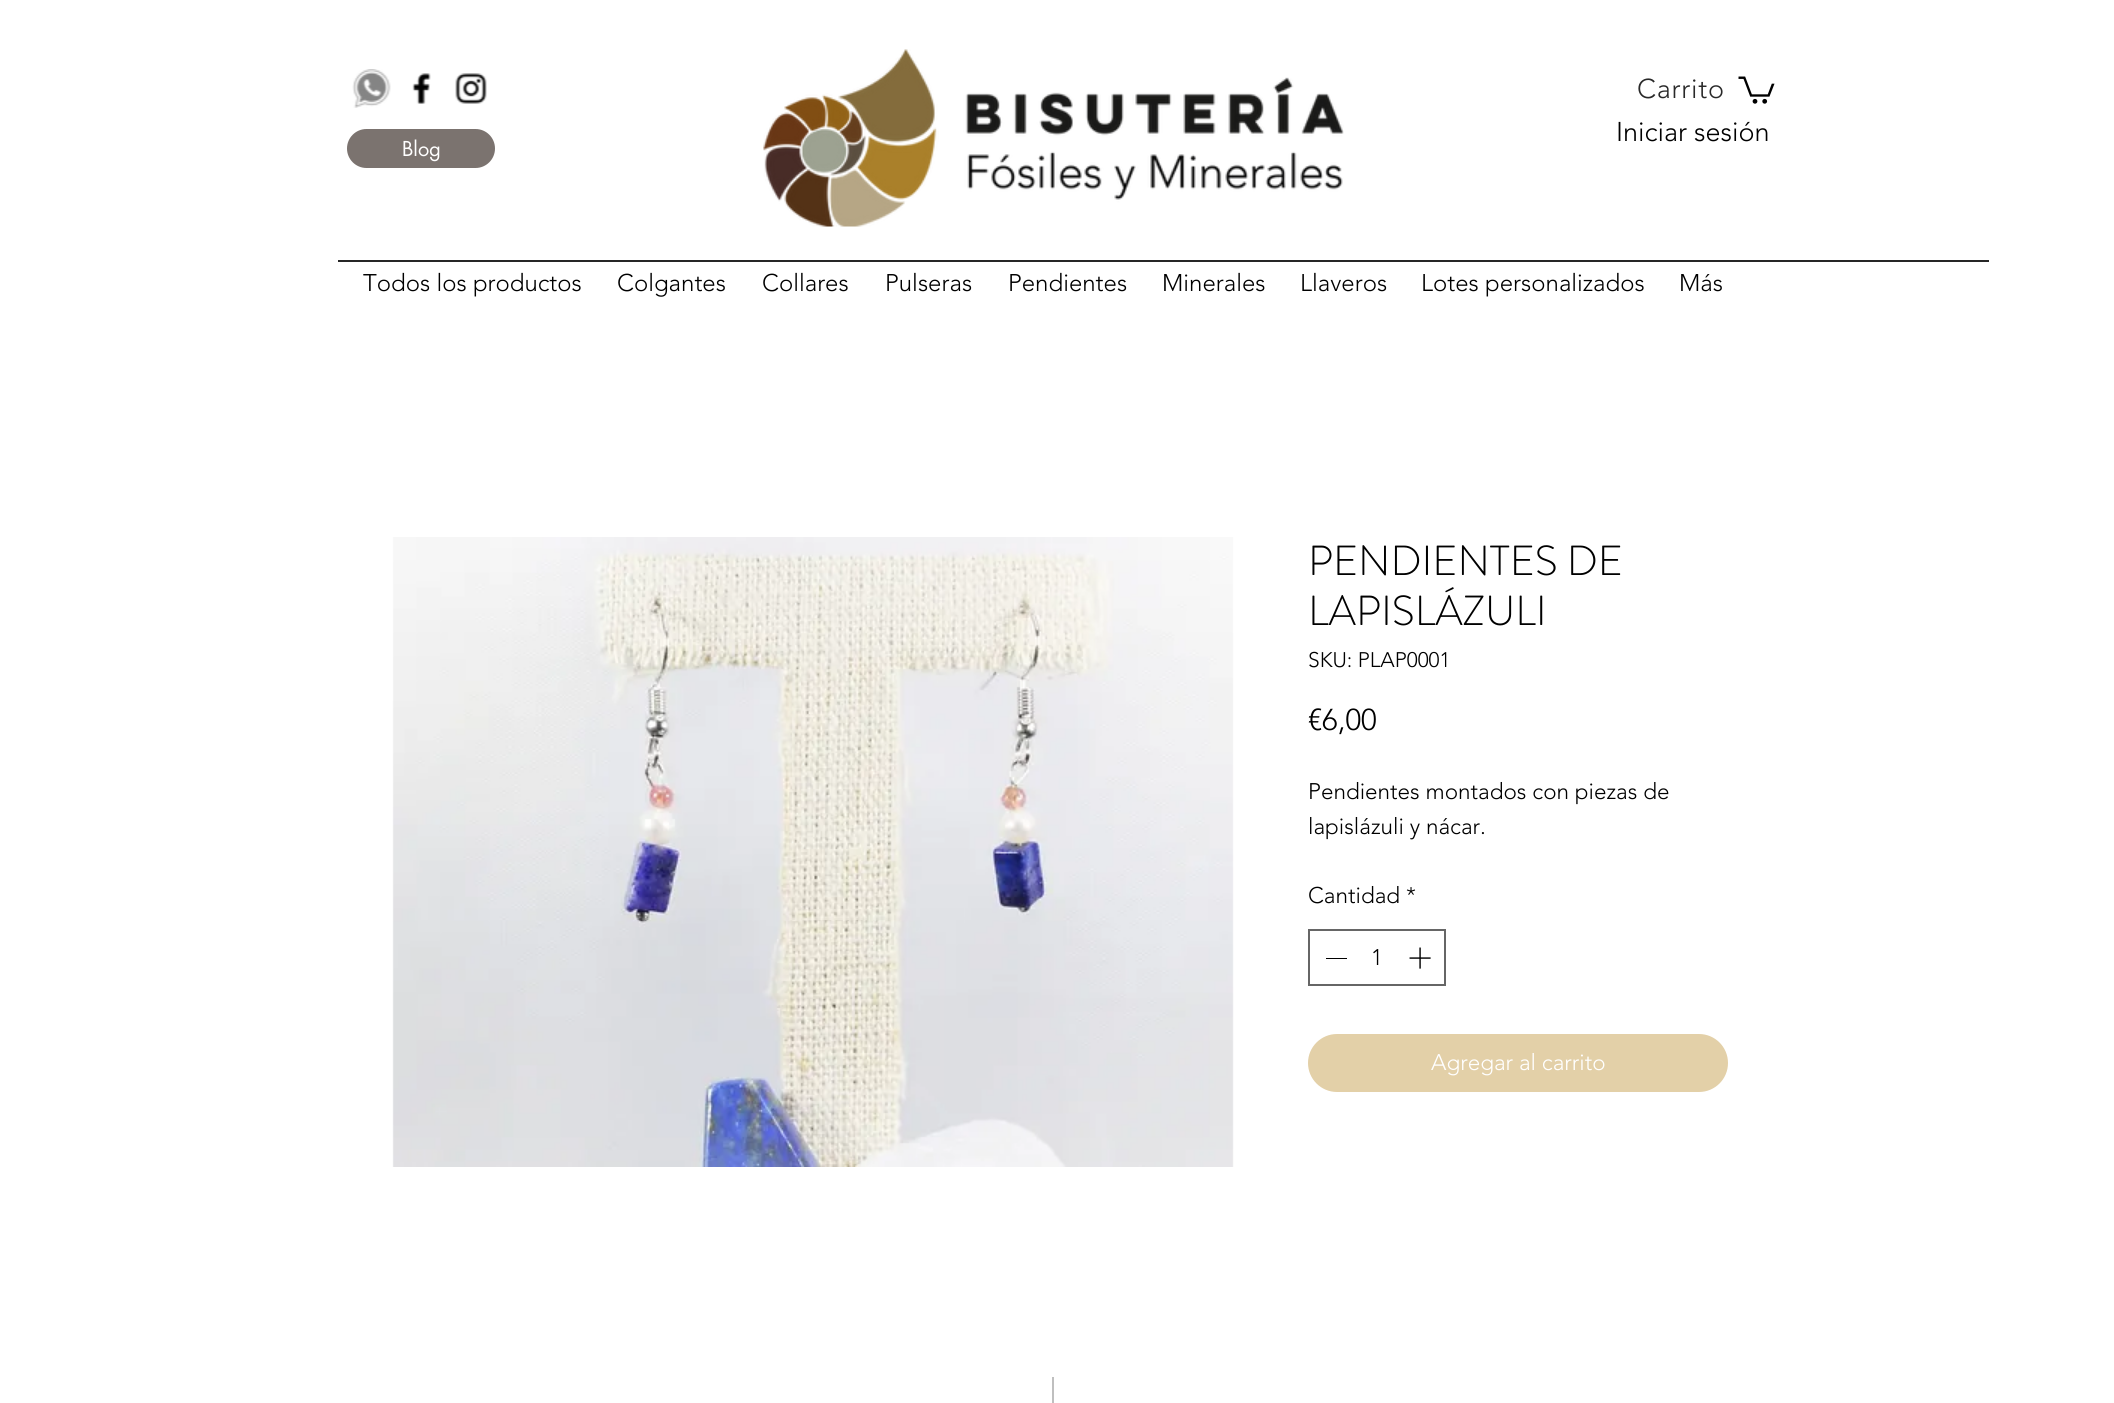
#include <cairo.h>
#include <math.h>
#include <stddef.h>

static cairo_t *c;
static void C(unsigned color){cairo_set_source_rgb(c, (color >> 16) / 255.0, (color >> 8 & 255) / 255.0, (color & 255) / 255.0);}
static void F(const char *family, double size, int italic, int bold){cairo_select_font_face(c, family, italic ? CAIRO_FONT_SLANT_ITALIC : CAIRO_FONT_SLANT_NORMAL,bold ? CAIRO_FONT_WEIGHT_BOLD : CAIRO_FONT_WEIGHT_NORMAL);cairo_set_font_size(c, size);}
static void T(double x, double y, const char *s){cairo_move_to(c, x, y);cairo_show_text(c, s);}
static void L(double x, double y, const char *s, double letter, double word){cairo_move_to(c, x, y);while (*s) {char ch[5] = {0};int n = 0;do ch[n++] = *s++; while ((*s & 0xC0) == 0x80);cairo_show_text(c, ch);cairo_rel_move_to(c, letter + word * (*ch == ' '), 0);}}
static void R(double x, double y, double w, double h){cairo_rectangle(c, x, y, w, h);cairo_fill(c);}
static void Q(double x, double y, double w, double h, double r){cairo_new_sub_path(c);cairo_arc(c, x + w - r, y + h - r, r, 0, M_PI / 2);cairo_arc(c, x + r, y + h - r, r, M_PI / 2, M_PI);cairo_arc(c, x + r, y + r, r, M_PI, 1.5 * M_PI);cairo_arc(c, x + w - r, y + r, r, 1.5 * M_PI, 2 * M_PI);cairo_close_path(c);}
static void I(const char *path, double x, double y, double w, double h){cairo_surface_t *image = cairo_image_surface_create_from_png(path);cairo_save(c);cairo_set_source_surface(c, image, x, y);cairo_rectangle(c, x, y, w, h);cairo_fill(c);cairo_restore(c);cairo_surface_destroy(image);}
int main(void) {
cairo_surface_t *surface = cairo_image_surface_create(CAIRO_FORMAT_RGB24, 2114, 1403);
c = cairo_create(surface);
cairo_font_options_t *options = cairo_font_options_create();
cairo_font_options_set_hint_metrics(options, CAIRO_HINT_METRICS_OFF);
cairo_font_options_set_hint_style(options, CAIRO_HINT_STYLE_NONE);
cairo_set_font_options(c, options);
cairo_set_miter_limit(c, 4);
C(0xffffff);
cairo_paint(c);
I("1.png",352,69,39,39);
I("2.png",412,73,19,31);
I("3.png",455,73,32,31);
I("4.png",763,49,581,178);
F("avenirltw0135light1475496 Light",27,0,0);
C(0x292929);
L(1637,98,"Carrito",.75,0);
I("5.png",1738,76,37,28);
C(0x7b736f);
Q(347,129,148,39,19.5);
cairo_fill(c);
F("futura",20,0,0);
C(0xffffff);
T(402,156,"Blog");
F("avenirltw0135light1475496 Light",27,0,0);
C(0x000000);
T(1616,141,"Iniciar sesión");
C(0x262626);
R(338,260,1651,2);
F("avenirltw0135light1475496 Light",24,0,0);
C(0x000000);
T(363,291,"Todos los productos");
T(617,291,"Colgantes");
T(762,291,"Collares");
T(885,291,"Pulseras");
T(1008,291,"Pendientes");
T(1162,291,"Minerales");
T(1300,291,"Llaveros");
T(1421,291,"Lotes personalizados");
T(1679,291,"Más");
I("6.png",392,537,842,630);
F("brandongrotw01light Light",42,0,0);
T(1308,575,"PENDIENTES DE");
T(1308,625,"LAPISLÁZULI");
F("avenirltw0135light1475496 Light",21,0,0);
T(1308,667,"SKU: PLAP0001");
F("avenirltw0135light1475496 Light",30,0,0);
T(1308,730,"€6,00");
F("avenirltw0135light1475496 Light",22.5,0,0);
T(1308,799,"Pendientes montados con piezas de");
T(1308,834,"lapislázuli y nácar.");
T(1308,903,"Cantidad *");
cairo_rectangle(c,1309,930,136,55);
C(0x666666);
cairo_stroke(c);
C(0x000000);
R(1326,958,21,1);
T(1371,965,"1");
I("7.png",1409,947,22,22);
C(0xe3d0a8);
Q(1308,1034,420,58,29);
cairo_fill(c);
C(0xffffff);
T(1431,1070,"Agregar al carrito");
C(0xbfbfbf);
R(1052,1377,2,26);
cairo_surface_write_to_png(surface, "o.png");
cairo_font_options_destroy(options);
cairo_destroy(c);
cairo_surface_destroy(surface);
return 0;
}
